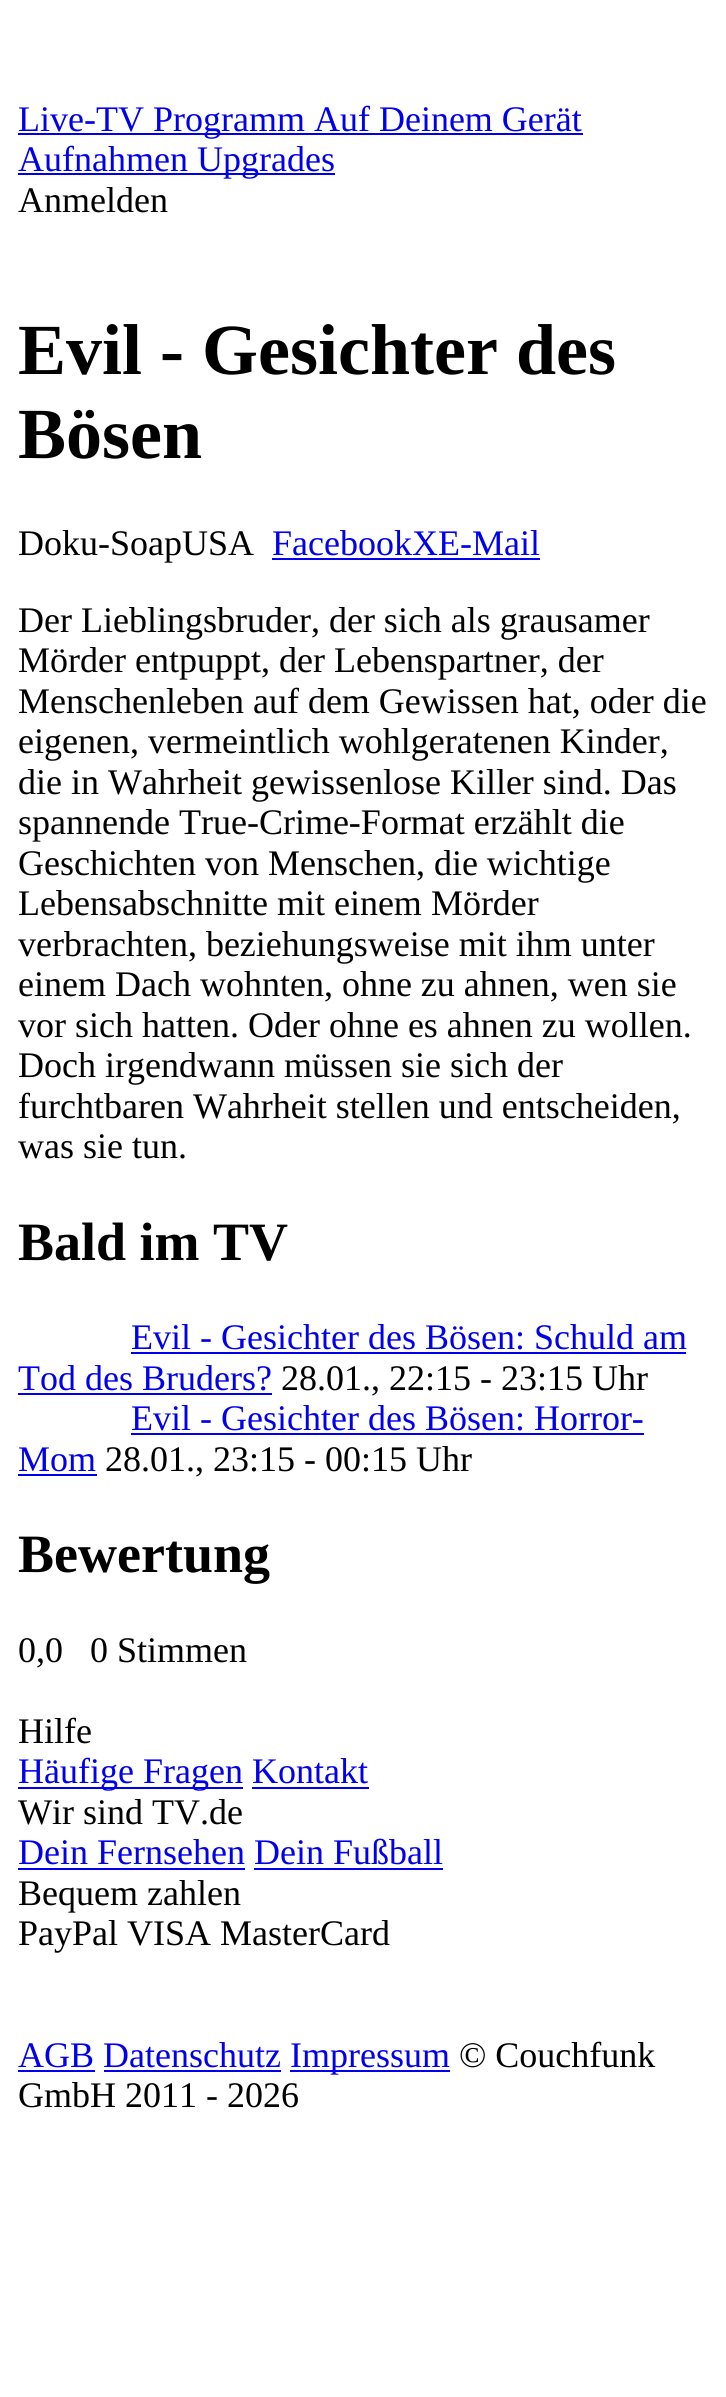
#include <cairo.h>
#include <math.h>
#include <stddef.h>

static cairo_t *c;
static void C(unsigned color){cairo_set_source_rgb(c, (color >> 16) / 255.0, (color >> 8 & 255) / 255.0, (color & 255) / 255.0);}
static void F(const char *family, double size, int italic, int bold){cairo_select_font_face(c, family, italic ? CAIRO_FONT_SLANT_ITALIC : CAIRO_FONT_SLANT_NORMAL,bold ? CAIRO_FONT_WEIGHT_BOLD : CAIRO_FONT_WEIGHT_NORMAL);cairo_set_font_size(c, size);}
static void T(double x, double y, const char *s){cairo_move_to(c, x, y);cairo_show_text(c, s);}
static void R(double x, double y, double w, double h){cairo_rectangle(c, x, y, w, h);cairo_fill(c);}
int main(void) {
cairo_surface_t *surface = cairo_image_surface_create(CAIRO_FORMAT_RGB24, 726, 2397);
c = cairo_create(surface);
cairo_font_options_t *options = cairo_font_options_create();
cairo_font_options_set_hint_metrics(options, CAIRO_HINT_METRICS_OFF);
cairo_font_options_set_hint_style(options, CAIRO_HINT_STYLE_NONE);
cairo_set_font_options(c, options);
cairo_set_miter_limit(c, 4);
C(0xffffff);
cairo_paint(c);
C(0x0000ee);
R(18,133,565,2);
F("Liberation Serif",36,0,0);
T(18,131,"Live-TV Programm Auf Deinem Gerät");
R(18,173,317,2);
T(18,171,"Aufnahmen Upgrades");
C(0x000000);
T(18,212,"Anmelden");
F("Liberation Serif",72,0,1);
T(18,374,"Evil - Gesichter des");
T(18,458,"Bösen");
F("Liberation Serif",36,0,0);
T(18,555,"Doku-SoapUSA");
C(0x0000ee);
T(272,555,"FacebookXE-Mail");
R(272,558,268,2);
C(0x000000);
T(18,632,"Der Lieblingsbruder, der sich als grausamer");
T(18,672,"Mörder entpuppt, der Lebenspartner, der");
T(18,713,"Menschenleben auf dem Gewissen hat, oder die");
T(18,753,"eigenen, vermeintlich wohlgeratenen Kinder,");
T(18,794,"die in Wahrheit gewissenlose Killer sind. Das");
T(18,834,"spannende True-Crime-Format erzählt die");
T(18,875,"Geschichten von Menschen, die wichtige");
T(18,915,"Lebensabschnitte mit einem Mörder");
T(18,956,"verbrachten, beziehungsweise mit ihm unter");
T(18,996,"einem Dach wohnten, ohne zu ahnen, wen sie");
T(18,1037,"vor sich hatten. Oder ohne es ahnen zu wollen.");
T(18,1077,"Doch irgendwann müssen sie sich der");
T(18,1118,"furchtbaren Wahrheit stellen und entscheiden,");
T(18,1158,"was sie tun.");
F("Liberation Serif",54,0,1);
T(18,1260,"Bald im TV");
F("Liberation Serif",36,0,0);
C(0x0000ee);
T(131,1349,"Evil - Gesichter des Bösen: Schuld am");
R(131,1352,555,2);
T(18,1390,"Tod des Bruders?");
R(18,1393,254,2);
C(0x000000);
T(281,1390,"28.01., 22:15 - 23:15 Uhr");
C(0x0000ee);
T(131,1430,"Evil - Gesichter des Bösen: Horror-");
R(131,1433,513,2);
T(18,1471,"Mom");
R(18,1474,79,2);
C(0x000000);
T(105,1471,"28.01., 23:15 - 00:15 Uhr");
F("Liberation Serif",54,0,1);
T(18,1572,"Bewertung");
F("Liberation Serif",36,0,0);
T(18,1662,"0,0");
T(90,1662,"0 Stimmen");
T(18,1743,"Hilfe");
C(0x0000ee);
R(18,1787,225,2);
T(18,1783,"Häufige Fragen Kontakt");
R(252,1787,117,2);
C(0x000000);
T(18,1824,"Wir sind TV.de");
C(0x0000ee);
T(18,1864,"Dein Fernsehen Dein Fußball");
R(18,1868,227,2);
R(254,1868,189,2);
C(0x000000);
T(18,1905,"Bequem zahlen");
T(18,1945,"PayPal VISA MasterCard");
C(0x0000ee);
T(18,2067,"AGB Datenschutz");
R(18,2070,77,2);
R(290,2070,160,2);
T(290,2067,"Impressum");
C(0x000000);
T(459,2067,"© Couchfunk");
C(0x0000ee);
R(104,2070,177,2);
C(0x000000);
T(18,2107,"GmbH 2011 - 2026");
cairo_surface_write_to_png(surface, "o.png");
cairo_font_options_destroy(options);
cairo_destroy(c);
cairo_surface_destroy(surface);
return 0;
}
